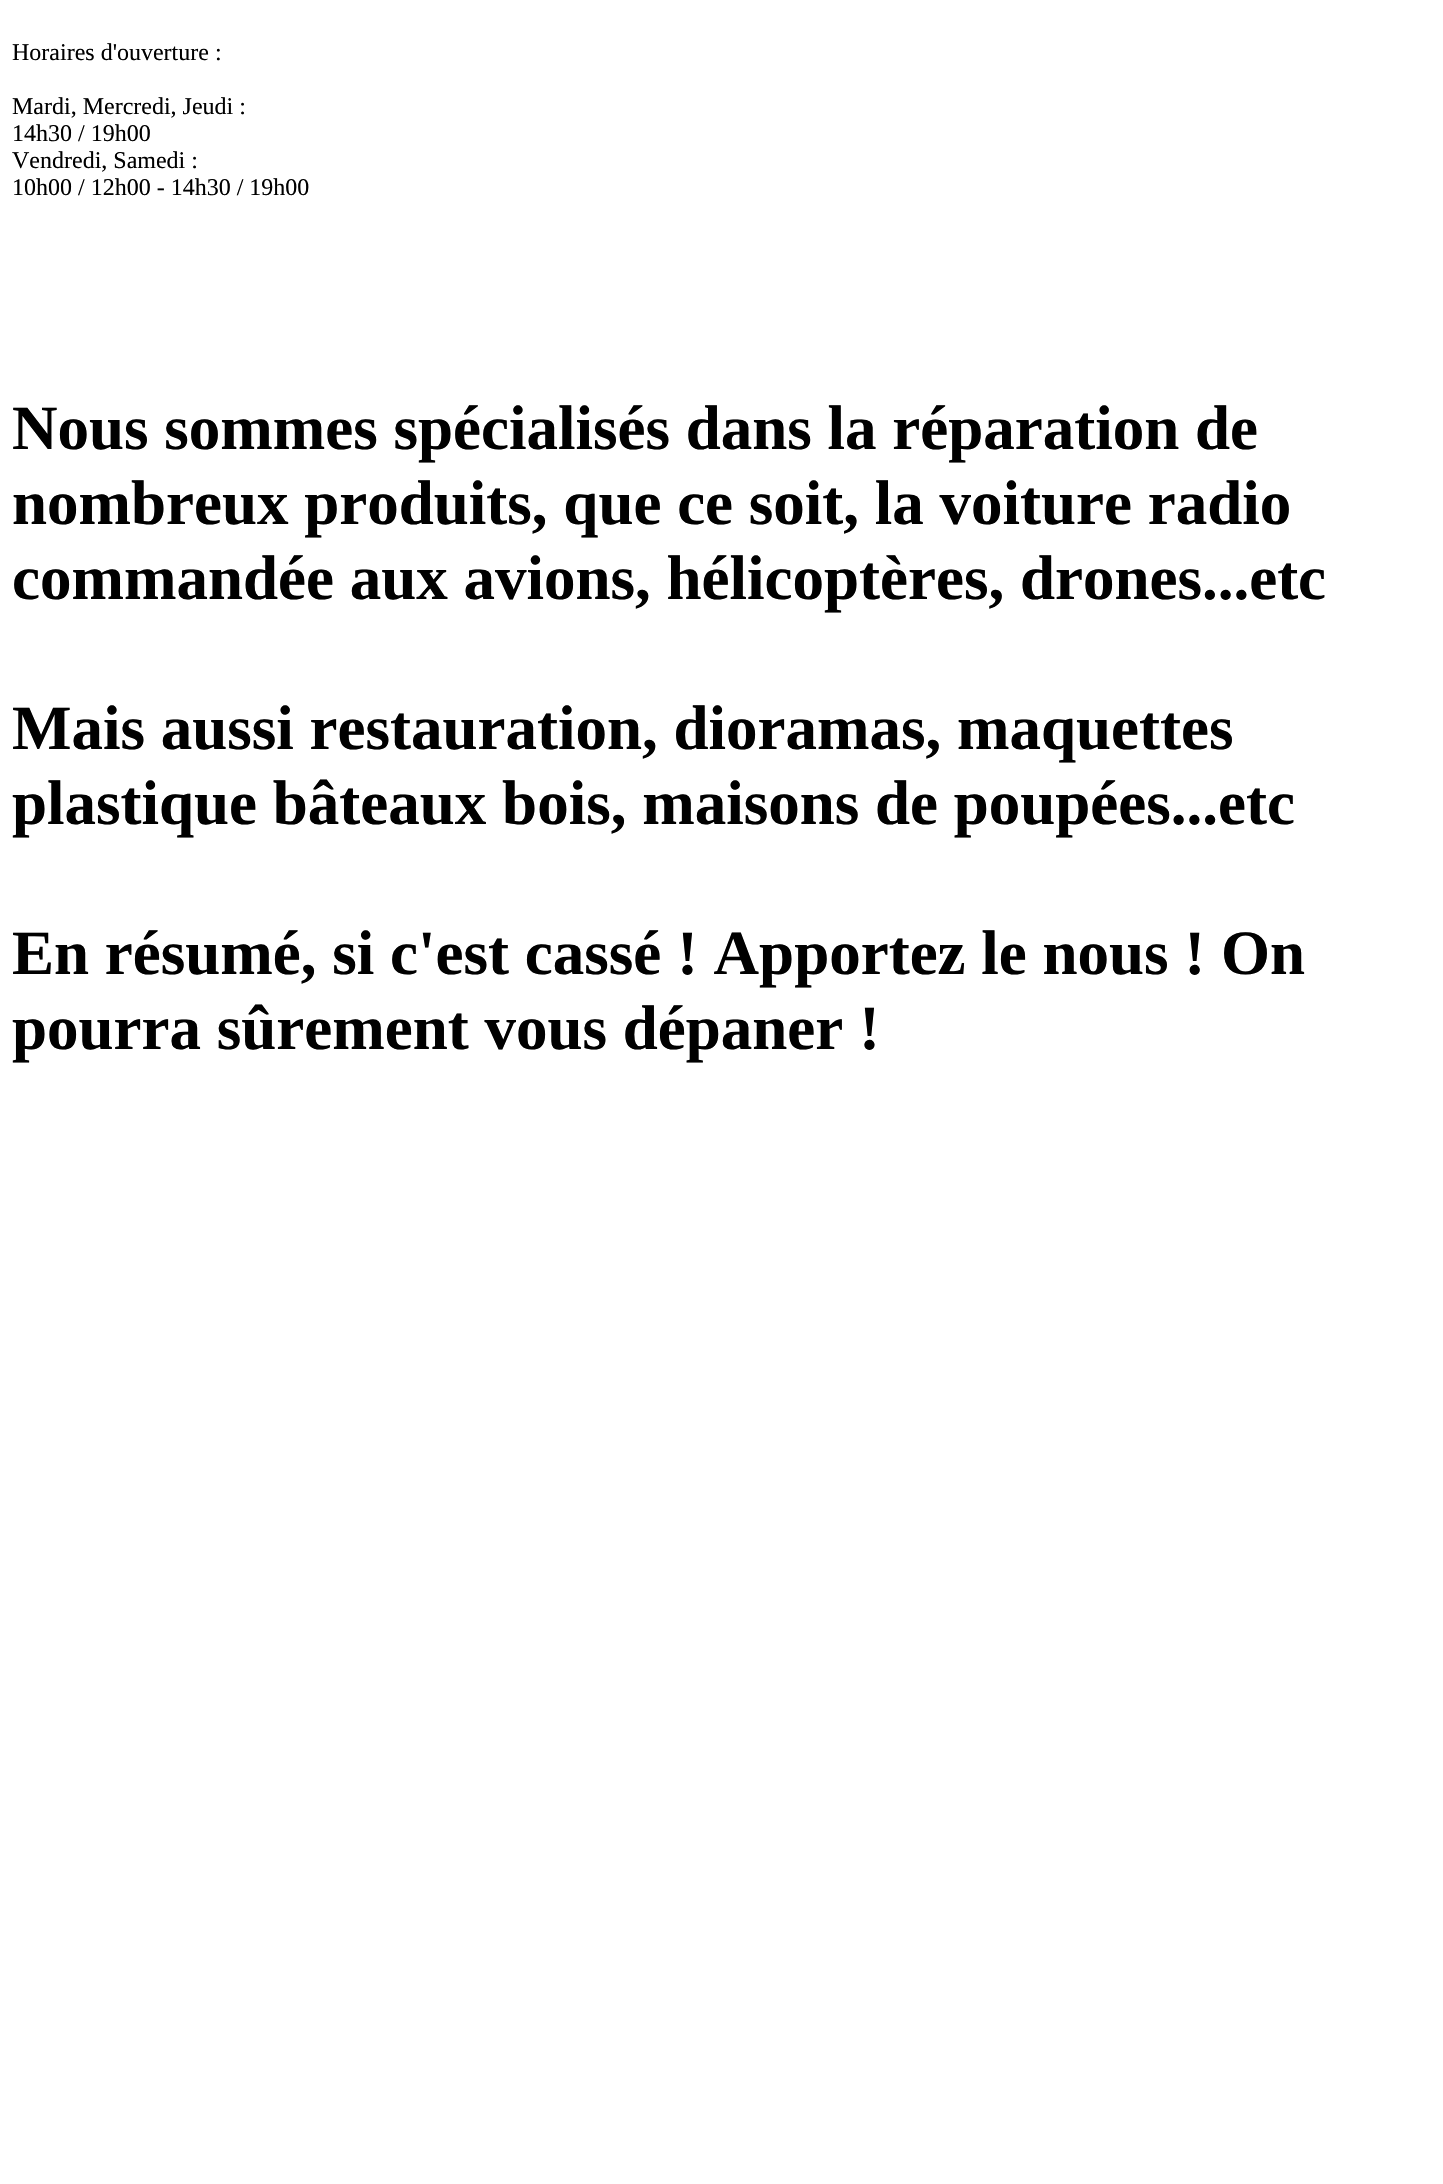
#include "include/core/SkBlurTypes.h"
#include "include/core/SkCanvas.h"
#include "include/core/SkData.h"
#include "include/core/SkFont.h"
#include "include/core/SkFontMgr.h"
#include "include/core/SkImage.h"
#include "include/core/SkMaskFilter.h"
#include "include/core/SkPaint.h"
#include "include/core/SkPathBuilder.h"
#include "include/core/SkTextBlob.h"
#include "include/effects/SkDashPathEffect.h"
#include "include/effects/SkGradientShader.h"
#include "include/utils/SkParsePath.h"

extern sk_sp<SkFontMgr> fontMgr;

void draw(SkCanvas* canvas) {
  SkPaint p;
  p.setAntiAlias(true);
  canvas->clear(SK_ColorWHITE);
  SkFont font1(fontMgr->matchFamilyStyle("Liberation Serif", SkFontStyle::Normal()), 24);
  font1.setSubpixel(true);
  p.setColor(SK_ColorBLACK);
  canvas->drawString("Horaires d'ouverture :", 12, 60, font1, p);
  canvas->drawString("Mardi, Mercredi, Jeudi :", 12, 114, font1, p);
  canvas->drawString("14h30 / 19h00", 12, 141, font1, p);
  canvas->drawString("Vendredi, Samedi :", 12, 168, font1, p);
  canvas->drawString("10h00 / 12h00 - 14h30 / 19h00", 12, 195, font1, p);
  SkFont font2(fontMgr->matchFamilyStyle("Liberation Serif", SkFontStyle::Bold()), 63);
  font2.setSubpixel(true);
  canvas->drawString("Nous sommes spécialisés dans la réparation de", 12, 449, font2, p);
  canvas->drawString("nombreux produits, que ce soit, la voiture radio", 12, 524, font2, p);
  canvas->drawString("commandée aux avions, hélicoptères, drones...etc", 12, 599, font2, p);
  canvas->drawString("Mais aussi restauration, dioramas, maquettes", 12, 749, font2, p);
  canvas->drawString("plastique bâteaux bois, maisons de poupées...etc", 12, 824, font2, p);
  canvas->drawString("En résumé, si c'est cassé ! Apportez le nous ! On", 12, 974, font2, p);
  canvas->drawString("pourra sûrement vous dépaner !", 12, 1049, font2, p);
}
